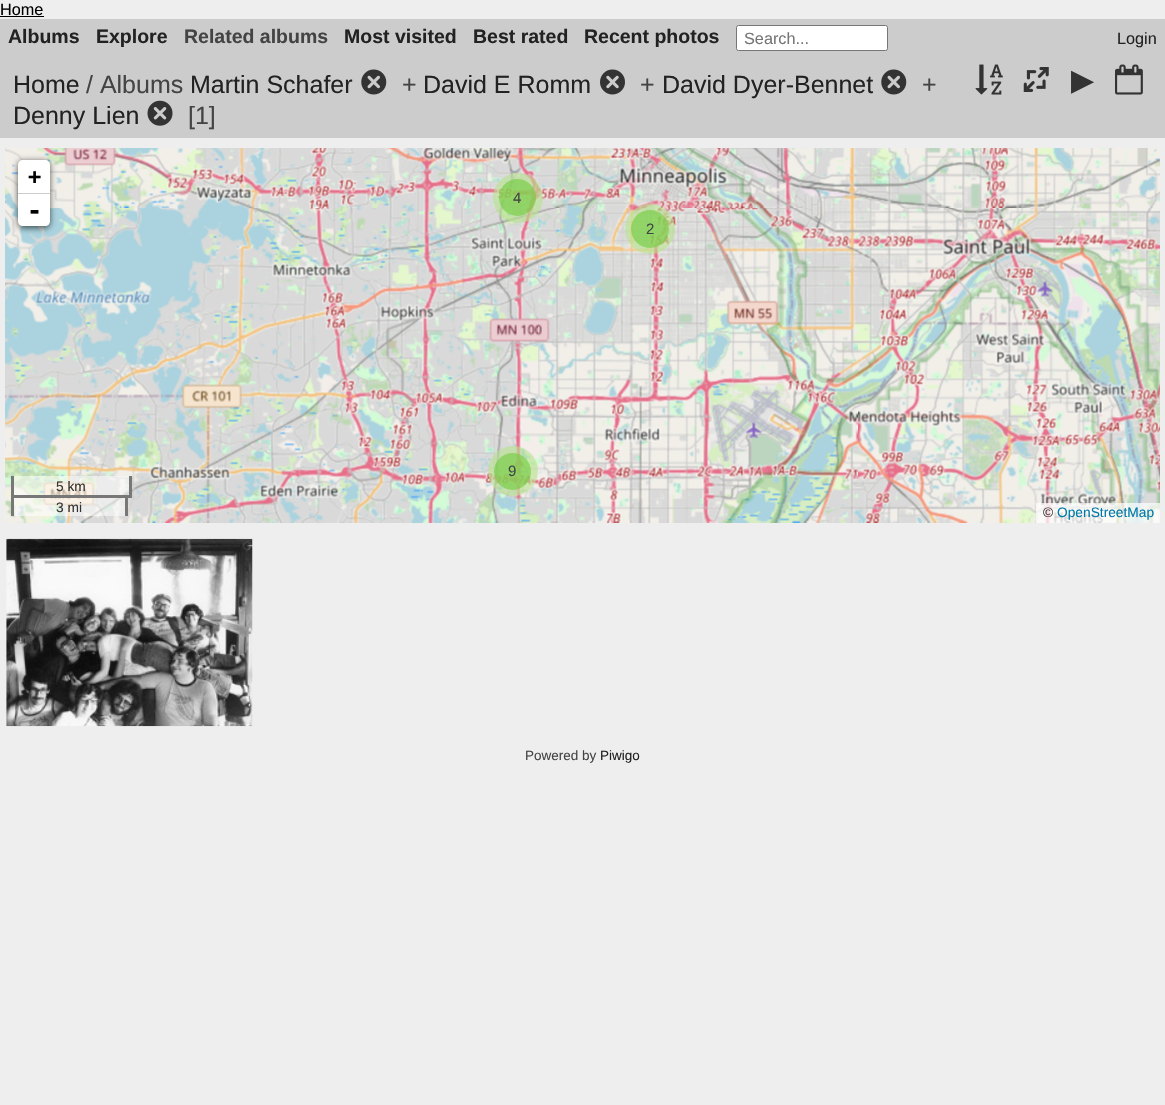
#include "include/core/SkBlurTypes.h"
#include "include/core/SkCanvas.h"
#include "include/core/SkData.h"
#include "include/core/SkFont.h"
#include "include/core/SkFontMgr.h"
#include "include/core/SkImage.h"
#include "include/core/SkMaskFilter.h"
#include "include/core/SkPaint.h"
#include "include/core/SkPathBuilder.h"
#include "include/core/SkTextBlob.h"
#include "include/effects/SkDashPathEffect.h"
#include "include/effects/SkGradientShader.h"
#include "include/utils/SkParsePath.h"

extern sk_sp<SkFontMgr> fontMgr;

void draw(SkCanvas* canvas) {
  SkPaint p;
  p.setAntiAlias(true);
  canvas->clear(SkColorSetRGB(238, 238, 238));
  p.setColor(SK_ColorBLACK);
  canvas->drawRect(SkRect::MakeLTRB(0, 16, 44, 17), p);
  p.setColor(SkColorSetRGB(204, 204, 204));
  canvas->drawRect(SkRect::MakeLTRB(0, 19, 1165, 138), p);
  p.setColor(SK_ColorWHITE);
  canvas->drawRoundRect(SkRect::MakeLTRB(736.5f, 25.5f, 887.5f, 50.5f), 2, 2, p);
  p.setStyle(SkPaint::kStroke_Style);
  p.setStrokeWidth(1);
  p.setColor(SkColorSetRGB(118, 118, 118));
  canvas->drawRoundRect(SkRect::MakeLTRB(736.5f, 25.5f, 887.5f, 50.5f), 2, 2, p);
  canvas->drawImageRect(SkImages::DeferredFromEncodedData(SkData::MakeFromFileName("images/1.png")), SkRect::MakeLTRB(361, 69, 387, 95), SkSamplingOptions());
  canvas->drawImageRect(SkImages::DeferredFromEncodedData(SkData::MakeFromFileName("images/2.png")), SkRect::MakeLTRB(600, 69, 625, 95), SkSamplingOptions());
  canvas->drawImageRect(SkImages::DeferredFromEncodedData(SkData::MakeFromFileName("images/1.png")), SkRect::MakeLTRB(881, 69, 907, 95), SkSamplingOptions());
  canvas->drawImageRect(SkImages::DeferredFromEncodedData(SkData::MakeFromFileName("images/3.png")), SkRect::MakeLTRB(147, 100, 173, 126), SkSamplingOptions());
  canvas->drawImageRect(SkImages::DeferredFromEncodedData(SkData::MakeFromFileName("images/4.png")), SkRect::MakeLTRB(975, 64, 1003, 95), SkSamplingOptions());
  canvas->drawImageRect(SkImages::DeferredFromEncodedData(SkData::MakeFromFileName("images/5.png")), SkRect::MakeLTRB(1023, 67, 1049, 92), SkSamplingOptions());
  canvas->drawImageRect(SkImages::DeferredFromEncodedData(SkData::MakeFromFileName("images/6.png")), SkRect::MakeLTRB(1115, 64, 1143, 95), SkSamplingOptions());
  canvas->drawImageRect(SkImages::DeferredFromEncodedData(SkData::MakeFromFileName("images/7.png")), SkRect::MakeLTRB(5, 148, 218, 208), SkSamplingOptions());
  canvas->drawImageRect(SkImages::DeferredFromEncodedData(SkData::MakeFromFileName("images/11.png")), SkRect::MakeLTRB(5, 208, 218, 523), SkSamplingOptions());
  p.setStyle(SkPaint::kFill_Style);
  p.setColor(SkColorSetARGB(166, 0, 0, 0));
  p.setMaskFilter(SkMaskFilter::MakeBlur(kNormal_SkBlurStyle, 3));
  canvas->drawRoundRect(SkRect::MakeLTRB(18, 161, 50, 228), 5, 5, p);
  p.setMaskFilter(nullptr);
  p.setColor(SK_ColorWHITE);
  canvas->drawPath(SkPathBuilder().moveTo(23, 160).lineTo(45, 160).cubicTo(48, 160, 50, 162, 50, 165).lineTo(50, 194).lineTo(18, 194).lineTo(18, 165).cubicTo(18, 162, 20, 160, 23, 160).close().detach(), p);
  p.setColor(SkColorSetRGB(204, 204, 204));
  canvas->drawRect(SkRect::MakeLTRB(18, 193, 50, 194), p);
  p.setColor(SK_ColorWHITE);
  canvas->drawPath(SkPathBuilder().moveTo(18, 194).lineTo(50, 194).lineTo(50, 221).cubicTo(50, 224, 48, 226, 45, 226).lineTo(23, 226).cubicTo(20, 226, 18, 224, 18, 221).close().detach(), p);
  p.setColor(SkColorSetARGB(128, 255, 255, 255));
  canvas->drawRect(SkRect::MakeLTRB(14, 476, 129, 495), p);
  p.setColor(SkColorSetRGB(119, 119, 119));
  canvas->drawRect(SkRect::MakeLTRB(129, 476, 132, 498), p);
  canvas->drawRect(SkRect::MakeLTRB(128, 495, 131, 498), p);
  canvas->drawRect(SkRect::MakeLTRB(11, 476, 14, 498), p);
  p.setColor(SkColorSetARGB(128, 255, 255, 255));
  canvas->drawRect(SkRect::MakeLTRB(14, 498, 125, 516), p);
  p.setColor(SkColorSetRGB(119, 119, 119));
  canvas->drawRect(SkRect::MakeLTRB(11, 495, 128, 498), p);
  canvas->drawRect(SkRect::MakeLTRB(125, 495, 128, 516), p);
  canvas->drawRect(SkRect::MakeLTRB(11, 495, 14, 516), p);
  canvas->drawImageRect(SkImages::DeferredFromEncodedData(SkData::MakeFromFileName("images/14.png")), SkRect::MakeLTRB(858, 208, 1160, 523), SkSamplingOptions());
  p.setColor(SkColorSetARGB(179, 255, 255, 255));
  canvas->drawRect(SkRect::MakeLTRB(1036, 503, 1160, 523), p);
  canvas->drawImageRect(SkImages::DeferredFromEncodedData(SkData::MakeFromFileName("images/8.png")), SkRect::MakeLTRB(218, 148, 538, 208), SkSamplingOptions());
  canvas->drawImageRect(SkImages::DeferredFromEncodedData(SkData::MakeFromFileName("images/9.png")), SkRect::MakeLTRB(538, 148, 858, 208), SkSamplingOptions());
  canvas->drawImageRect(SkImages::DeferredFromEncodedData(SkData::MakeFromFileName("images/10.png")), SkRect::MakeLTRB(858, 148, 1160, 208), SkSamplingOptions());
  canvas->drawImageRect(SkImages::DeferredFromEncodedData(SkData::MakeFromFileName("images/12.png")), SkRect::MakeLTRB(218, 208, 538, 523), SkSamplingOptions());
  canvas->drawImageRect(SkImages::DeferredFromEncodedData(SkData::MakeFromFileName("images/13.png")), SkRect::MakeLTRB(538, 208, 858, 523), SkSamplingOptions());
  p.setColor(SkColorSetARGB(153, 181, 226, 140));
  canvas->drawCircle(518, 198, 25, p);
  p.setColor(SkColorSetARGB(153, 110, 204, 57));
  canvas->drawCircle(517.5f, 197.5f, 18.5f, p);
  p.setColor(SkColorSetARGB(153, 181, 226, 140));
  canvas->drawCircle(650, 229, 25, p);
  p.setColor(SkColorSetARGB(153, 110, 204, 57));
  canvas->drawCircle(650, 229, 19, p);
  p.setColor(SkColorSetARGB(153, 181, 226, 140));
  canvas->drawCircle(513, 471, 25, p);
  p.setColor(SkColorSetARGB(153, 110, 204, 57));
  canvas->drawCircle(512.5f, 471.5f, 18.5f, p);
  canvas->drawImageRect(SkImages::DeferredFromEncodedData(SkData::MakeFromFileName("images/15.png")), SkRect::MakeLTRB(6, 538, 253, 727), SkSamplingOptions());
  SkFont font1(fontMgr->matchFamilyStyle("Liberation Sans", SkFontStyle::Normal()), 16.25f);
  font1.setSubpixel(true);
  p.setColor(SK_ColorBLACK);
  canvas->drawString("Home", 0, 15, font1, p);
  SkFont font2(fontMgr->matchFamilyStyle("Liberation Sans", SkFontStyle::Bold()), 19.5f);
  font2.setSubpixel(true);
  p.setColor(SkColorSetRGB(34, 34, 34));
  canvas->drawString("Albums", 8, 43, font2, p);
  canvas->drawString("Explore", 96, 43, font2, p);
  p.setColor(SkColorSetRGB(68, 68, 68));
  canvas->drawString("Related albums", 184, 43, font2, p);
  p.setColor(SkColorSetRGB(34, 34, 34));
  canvas->drawString("Most visited", 344, 43, font2, p);
  canvas->drawString("Best rated", 473, 43, font2, p);
  canvas->drawString("Recent photos", 584, 43, font2, p);
  p.setColor(SkColorSetRGB(117, 117, 117));
  canvas->drawString("Search...", 744, 44, font1, p);
  p.setColor(SkColorSetRGB(34, 34, 34));
  canvas->drawString("Login", 1117, 44, font1, p);
  SkFont font3(fontMgr->matchFamilyStyle("Liberation Sans", SkFontStyle::Normal()), 25);
  font3.setSubpixel(true);
  canvas->drawString("Home", 13, 93, font3, p);
  p.setColor(SkColorSetRGB(68, 68, 68));
  canvas->drawString("/ Albums", 86, 93, font3, p);
  p.setColor(SkColorSetRGB(34, 34, 34));
  canvas->drawString("Martin Schafer", 190, 93, font3, p);
  p.setColor(SkColorSetRGB(68, 68, 68));
  canvas->drawString("+", 402, 93, font3, p);
  p.setColor(SkColorSetRGB(34, 34, 34));
  canvas->drawString("David E Romm", 423, 93, font3, p);
  p.setColor(SkColorSetRGB(68, 68, 68));
  canvas->drawString("+", 640, 93, font3, p);
  p.setColor(SkColorSetRGB(34, 34, 34));
  canvas->drawString("David Dyer-Bennet", 662, 93, font3, p);
  p.setColor(SkColorSetRGB(68, 68, 68));
  canvas->drawString("+", 922, 93, font3, p);
  p.setColor(SkColorSetRGB(34, 34, 34));
  canvas->drawString("Denny Lien", 13, 124, font3, p);
  p.setColor(SkColorSetRGB(68, 68, 68));
  canvas->drawString("[1]", 188, 124, font3, p);
  SkFont font4(fontMgr->matchFamilyStyle("DejaVu Sans", SkFontStyle::Normal()), 30);
  font4.setSubpixel(true);
  p.setColor(SkColorSetRGB(51, 51, 51));
  canvas->drawString("▶", 1071, 90, font4, p);
  SkFont font5(fontMgr->matchFamilyStyle("DejaVu Sans Mono", SkFontStyle::Bold()), 22);
  font5.setSubpixel(true);
  p.setColor(SK_ColorBLACK);
  canvas->drawString("+", 28, 184, font5, p);
  SkFont font6(fontMgr->matchFamilyStyle("DejaVu Sans Mono", SkFontStyle::Bold()), 25);
  font6.setSubpixel(true);
  canvas->drawString("-", 27, 219, font6, p);
  SkFont font7(fontMgr->matchFamilyStyle("Liberation Sans", SkFontStyle::Normal()), 13.75f);
  font7.setSubpixel(true);
  p.setColor(SkColorSetRGB(51, 51, 51));
  canvas->drawString("5 km", 56, 491, font7, p);
  canvas->drawString("3 mi", 56, 512, font7, p);
  canvas->drawString("©", 1043, 517, font7, p);
  p.setColor(SkColorSetRGB(0, 120, 168));
  canvas->drawString("OpenStreetMap", 1057, 517, font7, p);
  SkFont font8(fontMgr->matchFamilyStyle("Liberation Sans", SkFontStyle::Normal()), 15);
  font8.setSubpixel(true);
  p.setColor(SkColorSetRGB(68, 68, 68));
  canvas->drawString("4", 513, 203, font8, p);
  canvas->drawString("2", 646, 234, font8, p);
  canvas->drawString("9", 508, 476, font8, p);
  SkFont font9(fontMgr->matchFamilyStyle("Liberation Sans", SkFontStyle::Normal()), 13.5f);
  font9.setSubpixel(true);
  canvas->drawString("Powered by", 525, 760, font9, p);
  p.setColor(SkColorSetRGB(34, 34, 34));
  canvas->drawString("Piwigo", 600, 760, font9, p);
}
